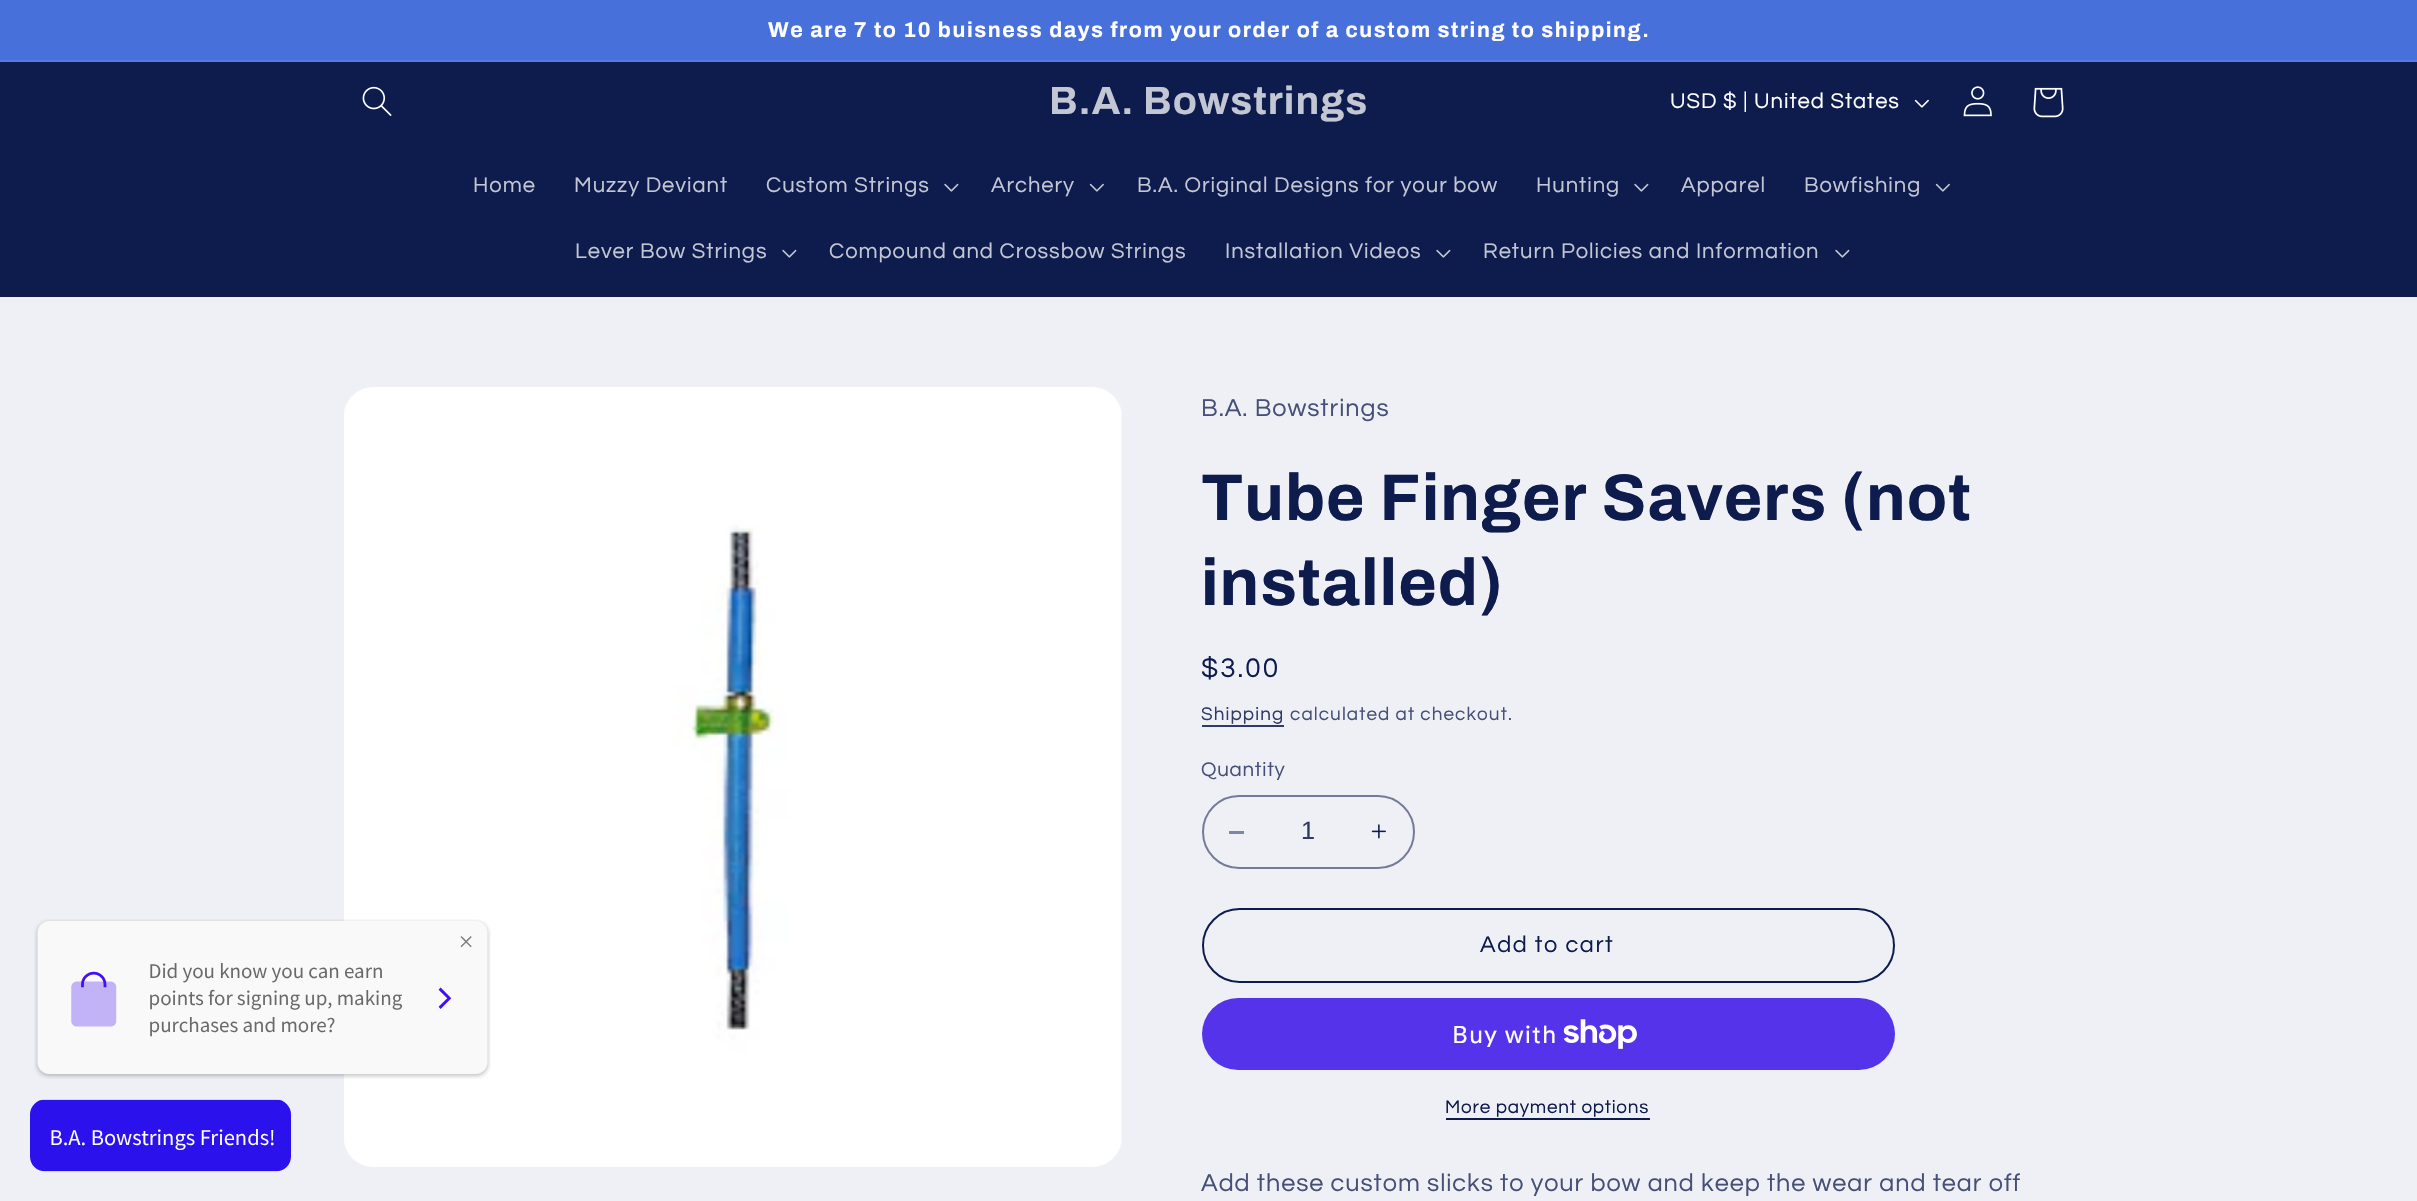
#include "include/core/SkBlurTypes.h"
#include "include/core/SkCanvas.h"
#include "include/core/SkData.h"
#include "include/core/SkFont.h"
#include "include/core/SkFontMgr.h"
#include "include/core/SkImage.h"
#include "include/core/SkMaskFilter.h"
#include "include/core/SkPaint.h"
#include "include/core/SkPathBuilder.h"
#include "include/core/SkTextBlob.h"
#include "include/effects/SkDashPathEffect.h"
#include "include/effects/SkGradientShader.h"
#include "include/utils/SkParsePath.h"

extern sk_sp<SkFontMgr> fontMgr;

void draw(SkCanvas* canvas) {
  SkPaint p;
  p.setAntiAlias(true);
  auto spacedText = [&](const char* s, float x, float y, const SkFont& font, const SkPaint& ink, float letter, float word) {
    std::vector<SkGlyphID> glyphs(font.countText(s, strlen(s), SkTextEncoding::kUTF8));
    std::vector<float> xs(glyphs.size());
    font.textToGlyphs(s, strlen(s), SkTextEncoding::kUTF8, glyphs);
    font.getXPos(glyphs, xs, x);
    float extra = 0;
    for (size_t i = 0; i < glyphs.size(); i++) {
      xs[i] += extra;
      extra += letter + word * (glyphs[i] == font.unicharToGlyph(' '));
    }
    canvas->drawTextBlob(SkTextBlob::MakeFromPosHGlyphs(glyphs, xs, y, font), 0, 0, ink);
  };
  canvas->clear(SkColorSetRGB(239, 240, 245));
  p.setColor(SkColorSetRGB(71, 112, 219));
  canvas->drawRect(SkRect::MakeLTRB(0, 0, 2417, 60), p);
  p.setColor(SkColorSetRGB(86, 123, 222));
  canvas->drawRect(SkRect::MakeLTRB(0, 60, 2417, 62), p);
  p.setColor(SkColorSetRGB(14, 27, 77));
  canvas->drawRect(SkRect::MakeLTRB(0, 62, 2417, 297), p);
  canvas->drawImageRect(SkImages::DeferredFromEncodedData(SkData::MakeFromFileName("images/1.png")), SkRect::MakeLTRB(362, 86, 392, 116), SkSamplingOptions());
  canvas->drawImageRect(SkImages::DeferredFromEncodedData(SkData::MakeFromFileName("images/2.png")), SkRect::MakeLTRB(1914, 99, 1929, 108), SkSamplingOptions());
  canvas->drawImageRect(SkImages::DeferredFromEncodedData(SkData::MakeFromFileName("images/3.png")), SkRect::MakeLTRB(1963, 86, 1992, 117), SkSamplingOptions());
  canvas->drawImageRect(SkImages::DeferredFromEncodedData(SkData::MakeFromFileName("images/4.png")), SkRect::MakeLTRB(2033, 87, 2064, 118), SkSamplingOptions());
  canvas->drawImageRect(SkImages::DeferredFromEncodedData(SkData::MakeFromFileName("images/5.png")), SkRect::MakeLTRB(944, 183, 959, 192), SkSamplingOptions());
  canvas->drawImageRect(SkImages::DeferredFromEncodedData(SkData::MakeFromFileName("images/6.png")), SkRect::MakeLTRB(1089, 183, 1104, 192), SkSamplingOptions());
  canvas->drawImageRect(SkImages::DeferredFromEncodedData(SkData::MakeFromFileName("images/5.png")), SkRect::MakeLTRB(1634, 183, 1649, 192), SkSamplingOptions());
  canvas->drawImageRect(SkImages::DeferredFromEncodedData(SkData::MakeFromFileName("images/6.png")), SkRect::MakeLTRB(1935, 183, 1950, 192), SkSamplingOptions());
  canvas->drawImageRect(SkImages::DeferredFromEncodedData(SkData::MakeFromFileName("images/5.png")), SkRect::MakeLTRB(782, 249, 797, 258), SkSamplingOptions());
  canvas->drawImageRect(SkImages::DeferredFromEncodedData(SkData::MakeFromFileName("images/5.png")), SkRect::MakeLTRB(1436, 249, 1451, 258), SkSamplingOptions());
  canvas->drawImageRect(SkImages::DeferredFromEncodedData(SkData::MakeFromFileName("images/5.png")), SkRect::MakeLTRB(1835, 249, 1850, 258), SkSamplingOptions());
  canvas->drawImageRect(SkImages::DeferredFromEncodedData(SkData::MakeFromFileName("images/8.png")), SkRect::MakeLTRB(344, 387, 1122, 1167), SkSamplingOptions());
  canvas->drawImageRect(SkImages::DeferredFromEncodedData(SkData::MakeFromFileName("images/7.png")), SkRect::MakeLTRB(34, 919, 491, 1079), SkSamplingOptions());
  p.setColor(SkColorSetRGB(48, 59, 102));
  canvas->drawRect(SkRect::MakeLTRB(1202, 725, 1284, 727), p);
  p.setColor(SkColorSetRGB(127, 134, 161));
  canvas->drawRect(SkRect::MakeLTRB(1229, 831, 1244, 834), p);
  canvas->drawImageRect(SkImages::DeferredFromEncodedData(SkData::MakeFromFileName("images/9.png")), SkRect::MakeLTRB(1371, 824, 1386, 839), SkSamplingOptions());
  p.setStyle(SkPaint::kStroke_Style);
  p.setStrokeWidth(2);
  p.setColor(SkColorSetRGB(115, 123, 153));
  canvas->drawRoundRect(SkRect::MakeLTRB(1203, 796, 1414, 868), 36, 36, p);
  p.setColor(SkColorSetRGB(14, 27, 77));
  canvas->drawRoundRect(SkRect::MakeLTRB(1203, 909, 1894, 982), 36.5f, 36.5f, p);
  p.setStyle(SkPaint::kFill_Style);
  p.setColor(SkColorSetRGB(84, 51, 235));
  canvas->drawRoundRect(SkRect::MakeLTRB(1202, 998, 1895, 1070), 36, 36, p);
  canvas->drawImageRect(SkImages::DeferredFromEncodedData(SkData::MakeFromFileName("images/10.png")), SkRect::MakeLTRB(1563, 1019, 1637, 1049), SkSamplingOptions());
  p.setColor(SkColorSetRGB(14, 27, 77));
  canvas->drawRect(SkRect::MakeLTRB(1446, 1118, 1650, 1120), p);
  canvas->drawImageRect(SkImages::DeferredFromEncodedData(SkData::MakeFromFileName("images/11.png")), SkRect::MakeLTRB(30, 1099, 291, 1172), SkSamplingOptions());
  SkFont font1(fontMgr->matchFamilyStyle("Archivo", SkFontStyle::Bold()), 21.45f);
  font1.setSubpixel(true);
  p.setColor(SK_ColorWHITE);
  spacedText("We are 7 to 10 buisness days from your order of a custom string to shipping.", 768, 37, font1, p, 1.58f, 0);
  SkFont font2(fontMgr->matchFamilyStyle("Archivo", SkFontStyle::Bold()), 39.5f);
  font2.setSubpixel(true);
  p.setColor(SkColorSetRGB(195, 198, 211));
  spacedText("B.A. Bowstrings", 1049, 114, font2, p, 1, 0);
  SkFont font3(fontMgr->matchFamilyStyle("Questrial", SkFontStyle::Normal()), 22);
  font3.setSubpixel(true);
  p.setColor(SK_ColorWHITE);
  spacedText("USD $ | United States", 1670, 108, font3, p, 0.95f, 0);
  p.setColor(SkColorSetRGB(195, 198, 211));
  spacedText("Home", 473, 192, font3, p, 0.95f, 0);
  spacedText("Muzzy Deviant", 574, 192, font3, p, 0.95f, 0);
  spacedText("Custom Strings", 766, 192, font3, p, 0.95f, 0);
  spacedText("Archery", 991, 192, font3, p, 0.95f, 0);
  spacedText("B.A. Original Designs for your bow", 1137, 192, font3, p, 0.95f, 0);
  spacedText("Hunting", 1536, 192, font3, p, 0.95f, 0);
  spacedText("Apparel", 1681, 192, font3, p, 0.95f, 0);
  spacedText("Bowfishing", 1804, 192, font3, p, 0.95f, 0);
  spacedText("Lever Bow Strings", 575, 258, font3, p, 0.95f, 0);
  spacedText("Compound and Crossbow Strings", 829, 258, font3, p, 0.95f, 0);
  spacedText("Installation Videos", 1225, 258, font3, p, 0.95f, 0);
  spacedText("Return Policies and Information", 1483, 258, font3, p, 0.95f, 0);
  SkFont font4(fontMgr->matchFamilyStyle("Questrial", SkFontStyle::Normal()), 25.2f);
  font4.setSubpixel(true);
  p.setColor(SkColorSetRGB(70, 80, 119));
  spacedText("B.A. Bowstrings", 1201, 416, font4, p, 0.95f, 0);
  SkFont font5(fontMgr->matchFamilyStyle("Archivo", SkFontStyle::Bold()), 66);
  font5.setSubpixel(true);
  p.setColor(SkColorSetRGB(14, 27, 77));
  spacedText("Tube Finger Savers (not", 1201, 520, font5, p, 1, 0);
  spacedText("installed)", 1201, 605, font5, p, 1, 0);
  SkFont font6(fontMgr->matchFamilyStyle("Questrial", SkFontStyle::Normal()), 28);
  font6.setSubpixel(true);
  spacedText("$3.00", 1201, 677, font6, p, 2, 0);
  SkFont font7(fontMgr->matchFamilyStyle("Questrial", SkFontStyle::Normal()), 18.9f);
  font7.setSubpixel(true);
  p.setColor(SkColorSetRGB(48, 59, 102));
  spacedText("Shipping", 1201, 720, font7, p, 1.1f, 0);
  p.setColor(SkColorSetRGB(70, 80, 119));
  spacedText("calculated at checkout.", 1290, 720, font7, p, 1.1f, 0);
  SkFont font8(fontMgr->matchFamilyStyle("Questrial", SkFontStyle::Normal()), 20.5f);
  font8.setSubpixel(true);
  spacedText("Quantity", 1201, 776, font8, p, 0.75f, 0);
  SkFont font9(fontMgr->matchFamilyStyle("Liberation Sans", SkFontStyle::Normal()), 25.2f);
  font9.setSubpixel(true);
  p.setColor(SkColorSetRGB(48, 59, 102));
  canvas->drawString("1", 1301, 839, font9, p);
  SkFont font10(fontMgr->matchFamilyStyle("Questrial", SkFontStyle::Normal()), 23.5f);
  font10.setSubpixel(true);
  p.setColor(SkColorSetRGB(14, 27, 77));
  spacedText("Add to cart", 1480, 952, font10, p, 1.58f, 0);
  SkFont font11(fontMgr->matchFamilyStyle("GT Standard", SkFontStyle::Normal()), 24);
  font11.setSubpixel(true);
  p.setColor(SK_ColorWHITE);
  spacedText("Buy with", 1452, 1043, font11, p, 0.95f, 0);
  p.setColor(SkColorSetRGB(14, 27, 77));
  spacedText("More payment options", 1445, 1113, font7, p, 0.75f, 0);
  p.setColor(SkColorSetRGB(70, 80, 119));
  spacedText("Add these custom slicks to your bow and keep the wear and tear off", 1201, 1191, font4, p, 0.95f, 0);
}
